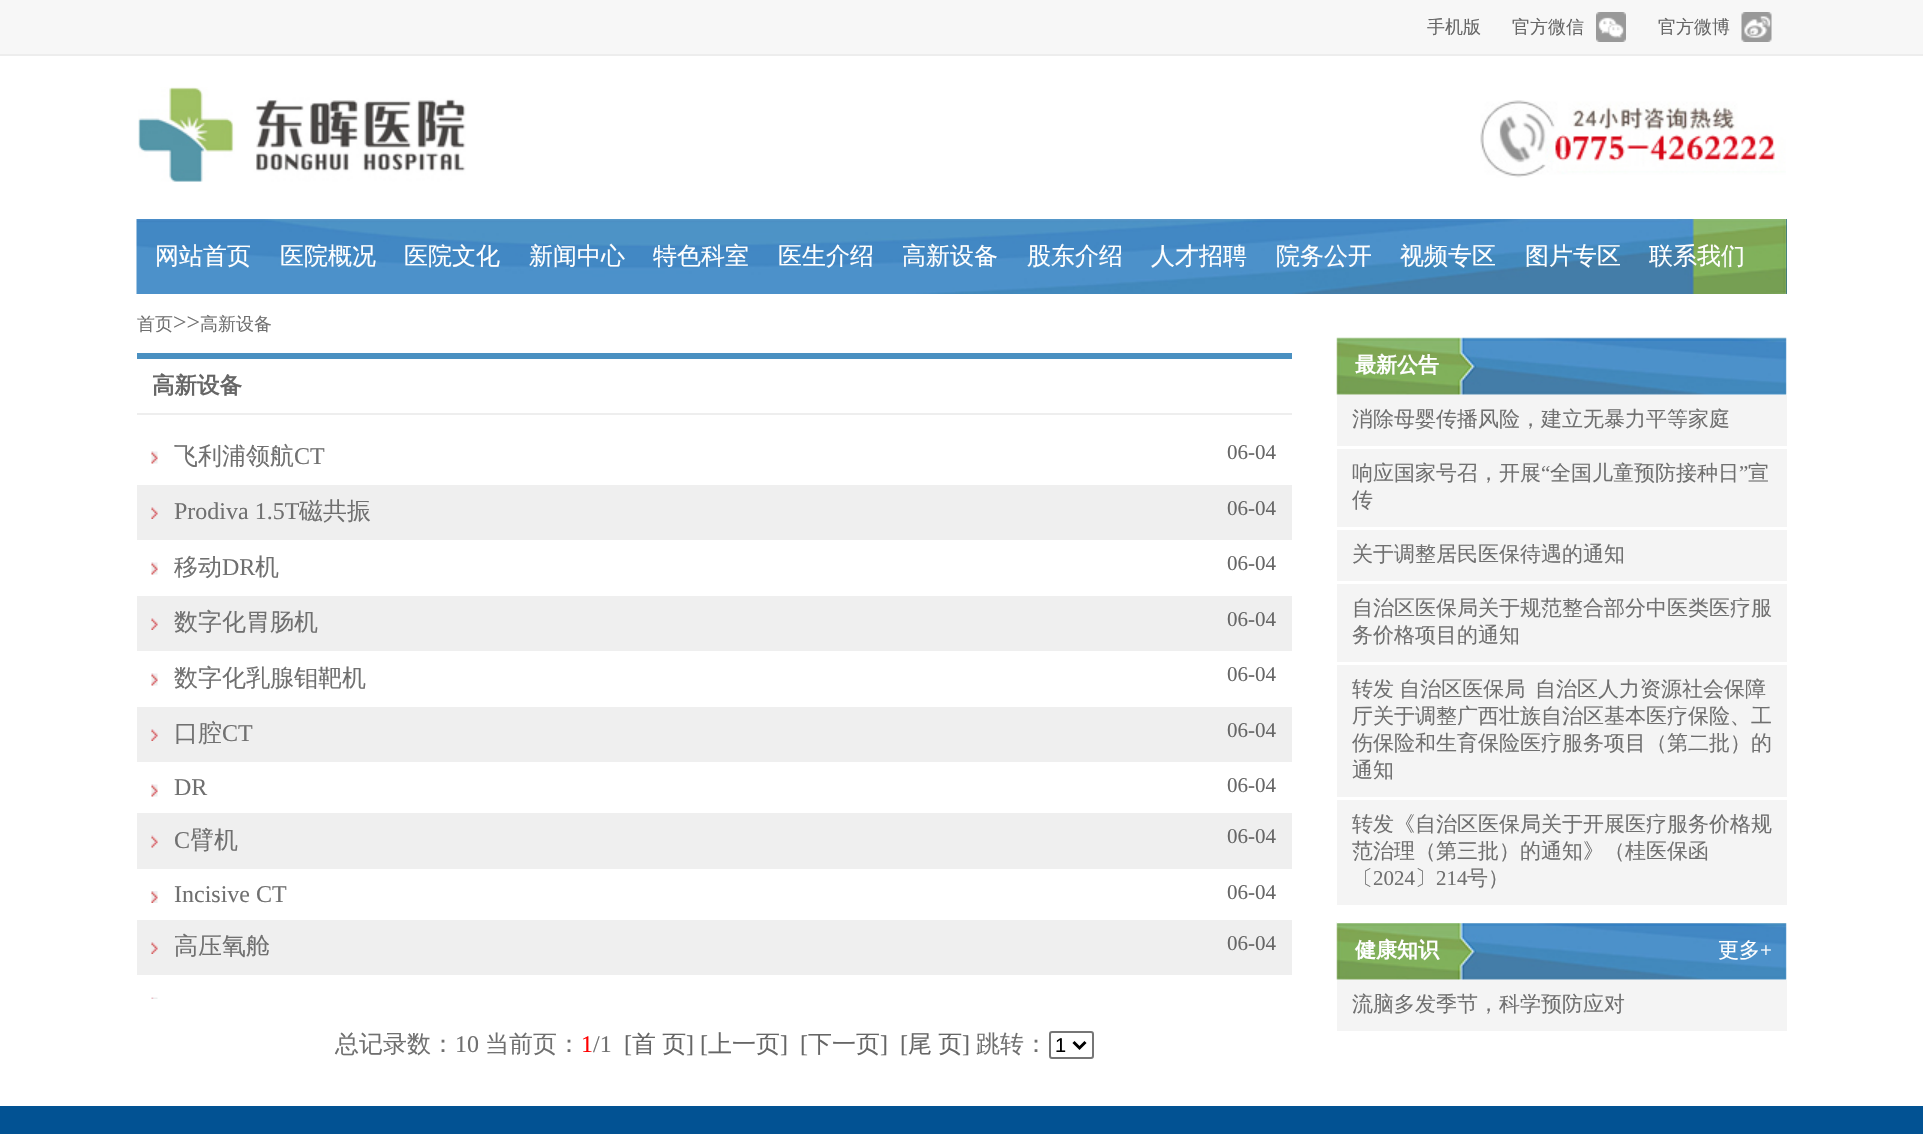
#include "include/core/SkBlurTypes.h"
#include "include/core/SkCanvas.h"
#include "include/core/SkData.h"
#include "include/core/SkFont.h"
#include "include/core/SkFontMgr.h"
#include "include/core/SkImage.h"
#include "include/core/SkMaskFilter.h"
#include "include/core/SkPaint.h"
#include "include/core/SkPathBuilder.h"
#include "include/core/SkTextBlob.h"
#include "include/effects/SkDashPathEffect.h"
#include "include/effects/SkGradientShader.h"
#include "include/utils/SkParsePath.h"

extern sk_sp<SkFontMgr> fontMgr;

void draw(SkCanvas* canvas) {
  SkPaint p;
  p.setAntiAlias(true);
  auto spacedText = [&](const char* s, float x, float y, const SkFont& font, const SkPaint& ink, float letter, float word) {
    std::vector<SkGlyphID> glyphs(font.countText(s, strlen(s), SkTextEncoding::kUTF8));
    std::vector<float> xs(glyphs.size());
    font.textToGlyphs(s, strlen(s), SkTextEncoding::kUTF8, glyphs);
    font.getXPos(glyphs, xs, x);
    float extra = 0;
    for (size_t i = 0; i < glyphs.size(); i++) {
      xs[i] += extra;
      extra += letter + word * (glyphs[i] == font.unicharToGlyph(' '));
    }
    canvas->drawTextBlob(SkTextBlob::MakeFromPosHGlyphs(glyphs, xs, y, font), 0, 0, ink);
  };
  canvas->clear(SK_ColorWHITE);
  p.setColor(SkColorSetRGB(247, 247, 247));
  canvas->drawRect(SkRect::MakeLTRB(0, 0, 1923, 54), p);
  p.setColor(SkColorSetRGB(237, 237, 237));
  canvas->drawRect(SkRect::MakeLTRB(0, 54, 1923, 56), p);
  canvas->drawImageRect(SkImages::DeferredFromEncodedData(SkData::MakeFromFileName("images/1.png")), SkRect::MakeLTRB(1596, 12, 1626, 42), SkSamplingOptions());
  canvas->drawImageRect(SkImages::DeferredFromEncodedData(SkData::MakeFromFileName("images/2.png")), SkRect::MakeLTRB(1741, 12, 1772, 42), SkSamplingOptions());
  canvas->drawImageRect(SkImages::DeferredFromEncodedData(SkData::MakeFromFileName("images/3.png")), SkRect::MakeLTRB(138, 87, 466, 182), SkSamplingOptions());
  canvas->drawImageRect(SkImages::DeferredFromEncodedData(SkData::MakeFromFileName("images/4.png")), SkRect::MakeLTRB(1480, 100, 1786, 178), SkSamplingOptions());
  p.setColor(SkColorSetRGB(2, 82, 147));
  canvas->drawRect(SkRect::MakeLTRB(1786, 219, 1787, 294), p);
  canvas->drawImageRect(SkImages::DeferredFromEncodedData(SkData::MakeFromFileName("images/5.png")), SkRect::MakeLTRB(136, 219, 1787, 294), SkSamplingOptions());
  p.setColor(SkColorSetRGB(74, 144, 193));
  canvas->drawRect(SkRect::MakeLTRB(137, 353, 1292, 359), p);
  p.setColor(SkColorSetRGB(238, 238, 238));
  canvas->drawRect(SkRect::MakeLTRB(137, 413, 1292, 415), p);
  canvas->drawImageRect(SkImages::DeferredFromEncodedData(SkData::MakeFromFileName("images/6.png")), SkRect::MakeLTRB(151, 451, 158, 464), SkSamplingOptions());
  p.setColor(SkColorSetRGB(239, 239, 239));
  canvas->drawRect(SkRect::MakeLTRB(137, 485, 1292, 540), p);
  canvas->drawImageRect(SkImages::DeferredFromEncodedData(SkData::MakeFromFileName("images/7.png")), SkRect::MakeLTRB(151, 507, 158, 519), SkSamplingOptions());
  canvas->drawImageRect(SkImages::DeferredFromEncodedData(SkData::MakeFromFileName("images/6.png")), SkRect::MakeLTRB(151, 562, 158, 575), SkSamplingOptions());
  canvas->drawRect(SkRect::MakeLTRB(137, 596, 1292, 651), p);
  canvas->drawImageRect(SkImages::DeferredFromEncodedData(SkData::MakeFromFileName("images/7.png")), SkRect::MakeLTRB(151, 618, 158, 630), SkSamplingOptions());
  canvas->drawImageRect(SkImages::DeferredFromEncodedData(SkData::MakeFromFileName("images/6.png")), SkRect::MakeLTRB(151, 673, 158, 686), SkSamplingOptions());
  canvas->drawRect(SkRect::MakeLTRB(137, 707, 1292, 762), p);
  canvas->drawImageRect(SkImages::DeferredFromEncodedData(SkData::MakeFromFileName("images/7.png")), SkRect::MakeLTRB(151, 729, 158, 741), SkSamplingOptions());
  canvas->drawImageRect(SkImages::DeferredFromEncodedData(SkData::MakeFromFileName("images/6.png")), SkRect::MakeLTRB(151, 784, 158, 797), SkSamplingOptions());
  canvas->drawRect(SkRect::MakeLTRB(137, 813, 1292, 869), p);
  canvas->drawImageRect(SkImages::DeferredFromEncodedData(SkData::MakeFromFileName("images/8.png")), SkRect::MakeLTRB(151, 835, 158, 848), SkSamplingOptions());
  canvas->drawImageRect(SkImages::DeferredFromEncodedData(SkData::MakeFromFileName("images/9.png")), SkRect::MakeLTRB(151, 891, 158, 903), SkSamplingOptions());
  canvas->drawRect(SkRect::MakeLTRB(137, 920, 1292, 975), p);
  canvas->drawImageRect(SkImages::DeferredFromEncodedData(SkData::MakeFromFileName("images/7.png")), SkRect::MakeLTRB(151, 942, 158, 954), SkSamplingOptions());
  canvas->drawImageRect(SkImages::DeferredFromEncodedData(SkData::MakeFromFileName("images/10.png")), SkRect::MakeLTRB(151, 997, 158, 999), SkSamplingOptions());
  p.setStyle(SkPaint::kStroke_Style);
  p.setStrokeWidth(2);
  p.setColor(SkColorSetRGB(118, 118, 118));
  canvas->drawRoundRect(SkRect::MakeLTRB(1050, 1032, 1093, 1058), 2, 2, p);
  p.setStrokeWidth(3);
  p.setColor(SK_ColorBLACK);
  canvas->drawPath(SkPathBuilder().moveTo(1073.5f, 1042).lineTo(1079.5f, 1048).lineTo(1085.5f, 1042).detach(), p);
  canvas->drawImageRect(SkImages::DeferredFromEncodedData(SkData::MakeFromFileName("images/11.png")), SkRect::MakeLTRB(1336, 337, 1787, 395), SkSamplingOptions());
  p.setStyle(SkPaint::kFill_Style);
  p.setColor(SkColorSetRGB(244, 244, 244));
  canvas->drawRect(SkRect::MakeLTRB(1337, 395, 1787, 905), p);
  p.setColor(SK_ColorWHITE);
  canvas->drawRect(SkRect::MakeLTRB(1337, 446, 1787, 449), p);
  canvas->drawRect(SkRect::MakeLTRB(1337, 527, 1787, 530), p);
  canvas->drawRect(SkRect::MakeLTRB(1337, 581, 1787, 584), p);
  canvas->drawRect(SkRect::MakeLTRB(1337, 662, 1787, 665), p);
  canvas->drawRect(SkRect::MakeLTRB(1337, 797, 1787, 800), p);
  canvas->drawImageRect(SkImages::DeferredFromEncodedData(SkData::MakeFromFileName("images/12.png")), SkRect::MakeLTRB(1336, 922, 1787, 980), SkSamplingOptions());
  canvas->drawRect(SkRect::MakeLTRB(1337, 922, 1787, 923), p);
  p.setColor(SkColorSetRGB(244, 244, 244));
  canvas->drawRect(SkRect::MakeLTRB(1337, 980, 1787, 1031), p);
  p.setColor(SkColorSetRGB(2, 82, 147));
  canvas->drawRect(SkRect::MakeLTRB(0, 1106, 1923, 1134), p);
  SkFont font1(fontMgr->matchFamilyStyle("WenQuanYi Zen Hei", SkFontStyle(500, SkFontStyle::kNormal_Width, SkFontStyle::kUpright_Slant)), 18);
  font1.setSubpixel(true);
  p.setColor(SkColorSetRGB(102, 102, 102));
  canvas->drawString("手机版", 1427, 33, font1, p);
  canvas->drawString("官方微信", 1512, 33, font1, p);
  canvas->drawString("官方微博", 1658, 33, font1, p);
  SkFont font2(fontMgr->matchFamilyStyle("WenQuanYi Zen Hei", SkFontStyle(500, SkFontStyle::kNormal_Width, SkFontStyle::kUpright_Slant)), 24);
  font2.setSubpixel(true);
  p.setColor(SK_ColorWHITE);
  canvas->drawString("网站首页", 155, 264, font2, p);
  canvas->drawString("医院概况", 280, 264, font2, p);
  canvas->drawString("医院文化", 404, 264, font2, p);
  canvas->drawString("新闻中心", 529, 264, font2, p);
  canvas->drawString("特色科室", 653, 264, font2, p);
  canvas->drawString("医生介绍", 778, 264, font2, p);
  canvas->drawString("高新设备", 902, 264, font2, p);
  canvas->drawString("股东介绍", 1027, 264, font2, p);
  canvas->drawString("人才招聘", 1151, 264, font2, p);
  canvas->drawString("院务公开", 1276, 264, font2, p);
  canvas->drawString("视频专区", 1400, 264, font2, p);
  canvas->drawString("图片专区", 1525, 264, font2, p);
  canvas->drawString("联系我们", 1649, 264, font2, p);
  p.setColor(SkColorSetRGB(112, 112, 112));
  canvas->drawString("首页", 137, 330, font1, p);
  SkFont font3(fontMgr->matchFamilyStyle("Liberation Serif", SkFontStyle::Normal()), 24);
  font3.setSubpixel(true);
  canvas->drawString(">>", 173, 330, font3, p);
  canvas->drawString("高新设备", 200, 330, font1, p);
  SkFont font4(fontMgr->matchFamilyStyle("WenQuanYi Zen Hei", SkFontStyle::Bold()), 22.5f);
  font4.setSubpixel(true);
  p.setColor(SkColorSetRGB(102, 102, 102));
  canvas->drawString("高新设备", 152, 393, font4, p);
  p.setColor(SkColorSetRGB(112, 112, 112));
  canvas->drawString("飞利浦领航", 174, 464, font2, p);
  canvas->drawString("CT", 294, 464, font3, p);
  SkFont font5(fontMgr->matchFamilyStyle("Liberation Serif", SkFontStyle::Normal()), 21);
  font5.setSubpixel(true);
  p.setColor(SkColorSetRGB(102, 102, 102));
  canvas->drawString("06-04", 1227, 459, font5, p);
  p.setColor(SkColorSetRGB(112, 112, 112));
  canvas->drawString("Prodiva 1.5T", 174, 519, font3, p);
  canvas->drawString("磁共振", 299, 519, font2, p);
  p.setColor(SkColorSetRGB(102, 102, 102));
  canvas->drawString("06-04", 1227, 515, font5, p);
  p.setColor(SkColorSetRGB(112, 112, 112));
  canvas->drawString("移动", 174, 575, font2, p);
  canvas->drawString("DR", 222, 575, font3, p);
  canvas->drawString("机", 255, 575, font2, p);
  p.setColor(SkColorSetRGB(102, 102, 102));
  canvas->drawString("06-04", 1227, 570, font5, p);
  p.setColor(SkColorSetRGB(112, 112, 112));
  canvas->drawString("数字化胃肠机", 174, 630, font2, p);
  p.setColor(SkColorSetRGB(102, 102, 102));
  canvas->drawString("06-04", 1227, 626, font5, p);
  p.setColor(SkColorSetRGB(112, 112, 112));
  canvas->drawString("数字化乳腺钼靶机", 174, 686, font2, p);
  p.setColor(SkColorSetRGB(102, 102, 102));
  canvas->drawString("06-04", 1227, 681, font5, p);
  p.setColor(SkColorSetRGB(112, 112, 112));
  canvas->drawString("口腔", 174, 741, font2, p);
  canvas->drawString("CT", 222, 741, font3, p);
  p.setColor(SkColorSetRGB(102, 102, 102));
  canvas->drawString("06-04", 1227, 737, font5, p);
  p.setColor(SkColorSetRGB(112, 112, 112));
  canvas->drawString("DR", 174, 795, font3, p);
  p.setColor(SkColorSetRGB(102, 102, 102));
  canvas->drawString("06-04", 1227, 792, font5, p);
  p.setColor(SkColorSetRGB(112, 112, 112));
  canvas->drawString("C", 174, 848, font3, p);
  canvas->drawString("臂机", 190, 848, font2, p);
  p.setColor(SkColorSetRGB(102, 102, 102));
  canvas->drawString("06-04", 1227, 843, font5, p);
  p.setColor(SkColorSetRGB(112, 112, 112));
  canvas->drawString("Incisive CT", 174, 902, font3, p);
  p.setColor(SkColorSetRGB(102, 102, 102));
  canvas->drawString("06-04", 1227, 899, font5, p);
  p.setColor(SkColorSetRGB(112, 112, 112));
  canvas->drawString("高压氧舱", 174, 954, font2, p);
  p.setColor(SkColorSetRGB(102, 102, 102));
  canvas->drawString("06-04", 1227, 950, font5, p);
  p.setColor(SkColorSetRGB(112, 112, 112));
  canvas->drawString("总记录数：", 335, 1052, font2, p);
  canvas->drawString("10", 455, 1052, font3, p);
  canvas->drawString("当前页：", 485, 1052, font2, p);
  p.setColor(SkColorSetRGB(255, 0, 0));
  canvas->drawString("1", 581, 1052, font3, p);
  p.setColor(SkColorSetRGB(112, 112, 112));
  canvas->drawString("/1", 593, 1052, font3, p);
  p.setColor(SkColorSetRGB(102, 102, 102));
  canvas->drawString("[", 624, 1052, font3, p);
  spacedText("首 页", 632, 1052, font2, p, 0, -1);
  canvas->drawString("] [", 686, 1052, font3, p);
  canvas->drawString("上一页", 708, 1052, font2, p);
  canvas->drawString("]", 780, 1052, font3, p);
  canvas->drawString("[", 800, 1052, font3, p);
  canvas->drawString("下一页", 808, 1052, font2, p);
  canvas->drawString("]", 880, 1052, font3, p);
  canvas->drawString("[", 900, 1052, font3, p);
  spacedText("尾 页", 908, 1052, font2, p, 0, -1);
  canvas->drawString("]", 962, 1052, font3, p);
  p.setColor(SkColorSetRGB(112, 112, 112));
  canvas->drawString("跳转：", 976, 1052, font2, p);
  SkFont font6(fontMgr->matchFamilyStyle("Liberation Sans", SkFontStyle::Normal()), 20);
  font6.setSubpixel(true);
  p.setColor(SK_ColorBLACK);
  canvas->drawString("1", 1055, 1052, font6, p);
  SkFont font7(fontMgr->matchFamilyStyle("WenQuanYi Zen Hei", SkFontStyle::Bold()), 21);
  font7.setSubpixel(true);
  p.setColor(SK_ColorWHITE);
  canvas->drawString("最新公告", 1355, 372, font7, p);
  SkFont font8(fontMgr->matchFamilyStyle("WenQuanYi Zen Hei", SkFontStyle(500, SkFontStyle::kNormal_Width, SkFontStyle::kUpright_Slant)), 21);
  font8.setSubpixel(true);
  p.setColor(SkColorSetRGB(112, 112, 112));
  canvas->drawString("消除母婴传播风险，建立无暴力平等家庭", 1352, 426, font8, p);
  canvas->drawString("响应国家号召，开展", 1352, 480, font8, p);
  canvas->drawString("“", 1541, 480, font5, p);
  canvas->drawString("全国儿童预防接种日", 1550, 480, font8, p);
  canvas->drawString("”", 1739, 480, font5, p);
  canvas->drawString("宣", 1748, 480, font8, p);
  canvas->drawString("传", 1352, 507, font8, p);
  canvas->drawString("关于调整居民医保待遇的通知", 1352, 561, font8, p);
  canvas->drawString("自治区医保局关于规范整合部分中医类医疗服", 1352, 615, font8, p);
  canvas->drawString("务价格项目的通知", 1352, 642, font8, p);
  spacedText("转发 自治区医保局", 1352, 696, font8, p, 0, -1);
  canvas->drawString("自治区人力资源社会保障", 1535, 696, font8, p);
  canvas->drawString("厅关于调整广西壮族自治区基本医疗保险、工", 1352, 723, font8, p);
  canvas->drawString("伤保险和生育保险医疗服务项目（第二批）的", 1352, 750, font8, p);
  canvas->drawString("通知", 1352, 777, font8, p);
  canvas->drawString("转发《自治区医保局关于开展医疗服务价格规", 1352, 831, font8, p);
  canvas->drawString("范治理（第三批）的通知》（桂医保函", 1352, 858, font8, p);
  canvas->drawString("〔", 1352, 885, font8, p);
  canvas->drawString("2024", 1373, 885, font5, p);
  canvas->drawString("〕", 1415, 885, font8, p);
  canvas->drawString("214", 1436, 885, font5, p);
  canvas->drawString("号）", 1467, 885, font8, p);
  p.setColor(SK_ColorWHITE);
  canvas->drawString("健康知识", 1355, 957, font7, p);
  canvas->drawString("更多", 1718, 957, font8, p);
  canvas->drawString("+", 1760, 957, font5, p);
  p.setColor(SkColorSetRGB(112, 112, 112));
  canvas->drawString("流脑多发季节，科学预防应对", 1352, 1011, font8, p);
}
